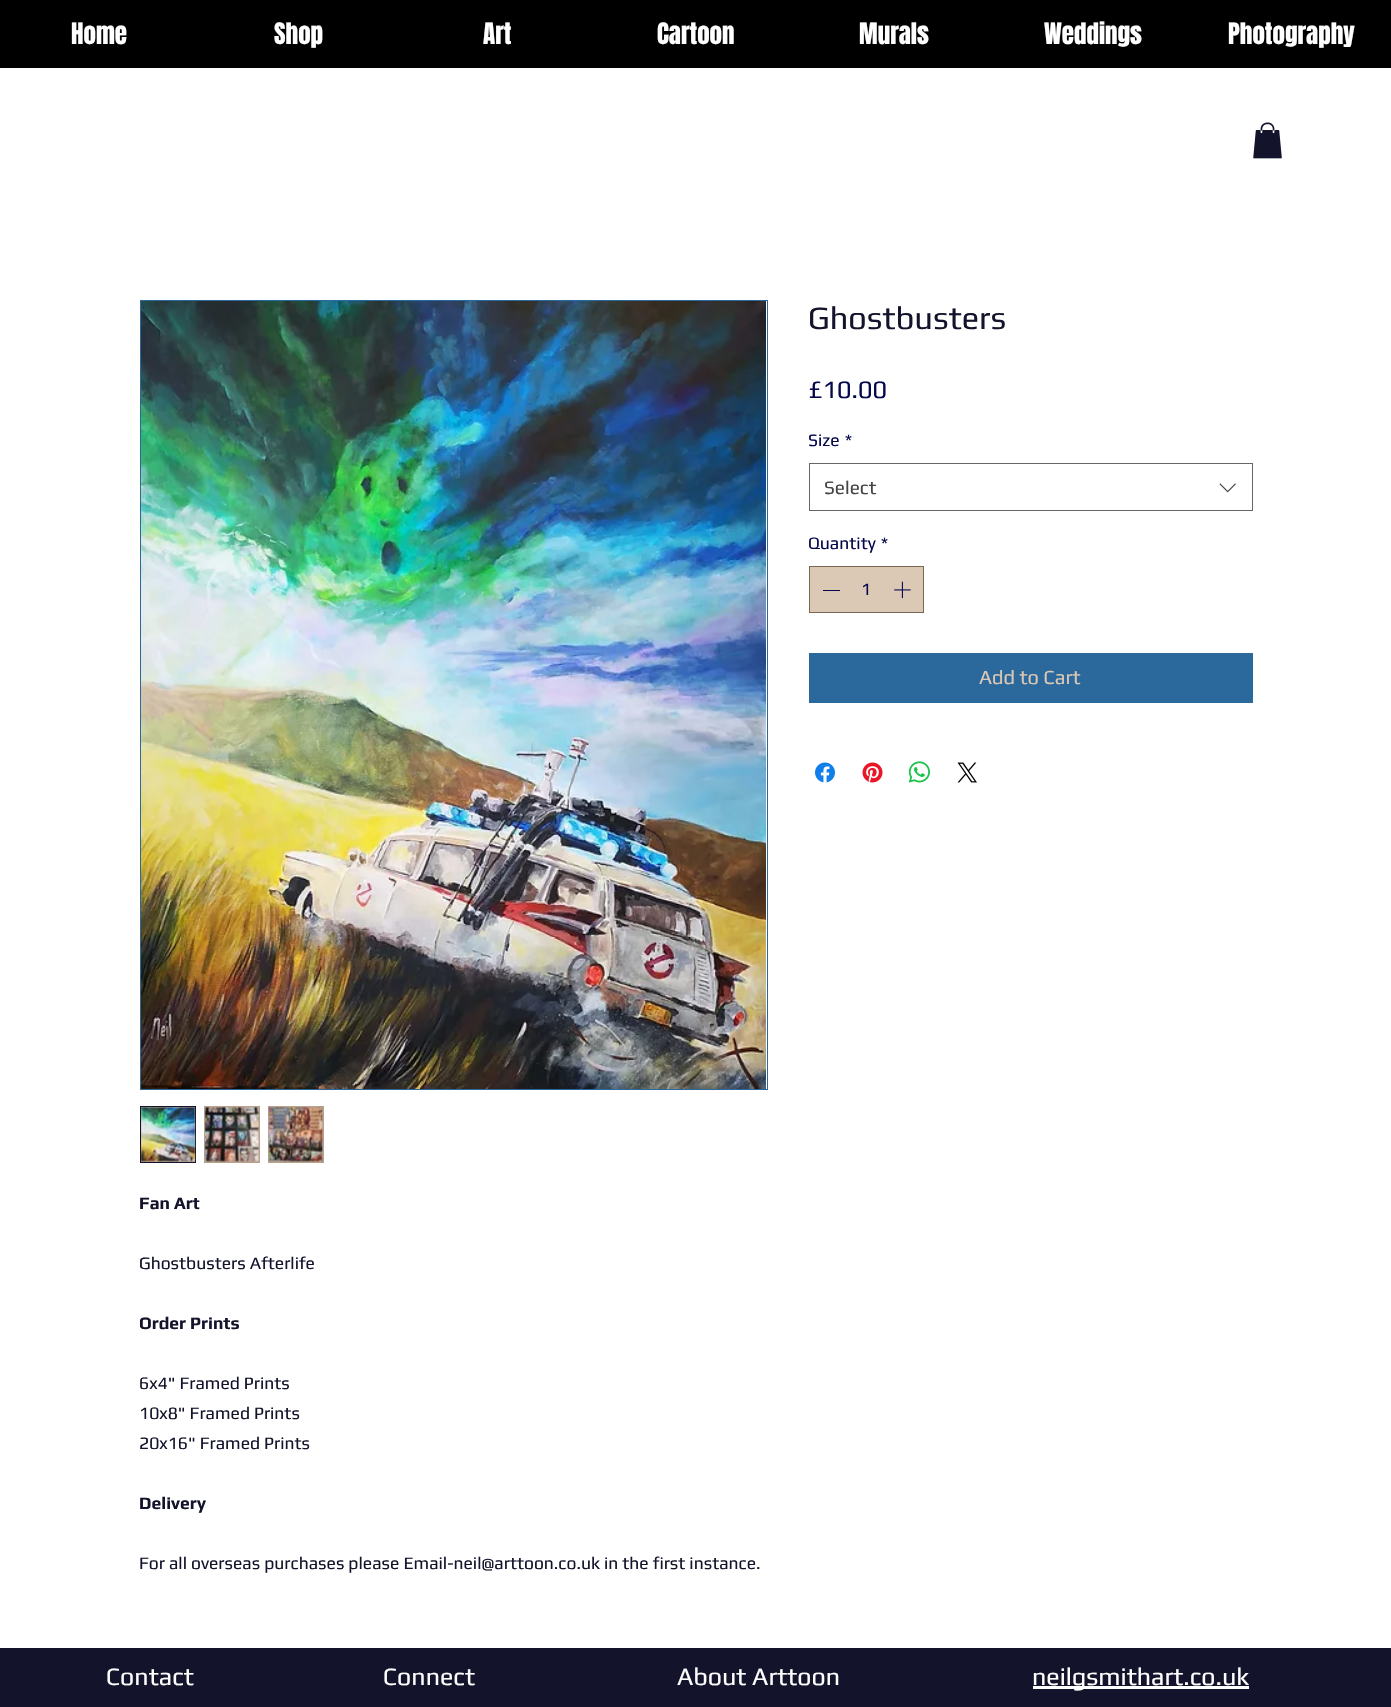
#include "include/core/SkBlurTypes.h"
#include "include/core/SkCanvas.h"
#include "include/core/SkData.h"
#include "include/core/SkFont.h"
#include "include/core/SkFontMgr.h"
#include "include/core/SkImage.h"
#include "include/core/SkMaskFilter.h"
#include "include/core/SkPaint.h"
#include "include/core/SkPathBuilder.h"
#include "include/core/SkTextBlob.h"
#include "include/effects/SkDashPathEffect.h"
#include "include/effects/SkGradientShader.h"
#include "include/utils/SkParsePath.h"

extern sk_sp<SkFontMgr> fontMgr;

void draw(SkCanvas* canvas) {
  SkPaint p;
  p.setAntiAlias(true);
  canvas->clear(SK_ColorWHITE);
  p.setColor(SK_ColorBLACK);
  canvas->drawRect(SkRect::MakeLTRB(0, 0, 1391, 68), p);
  canvas->drawImageRect(SkImages::DeferredFromEncodedData(SkData::MakeFromFileName("images/1.png")), SkRect::MakeLTRB(1253, 122, 1282, 159), SkSamplingOptions());
  p.setStyle(SkPaint::kStroke_Style);
  p.setStrokeWidth(1);
  p.setColor(SkColorSetRGB(102, 102, 102));
  canvas->drawRect(SkRect::MakeLTRB(809.5f, 463.5f, 1252.5f, 510.5f), p);
  canvas->drawImageRect(SkImages::DeferredFromEncodedData(SkData::MakeFromFileName("images/2.png")), SkRect::MakeLTRB(1219, 483, 1236, 493), SkSamplingOptions());
  p.setStyle(SkPaint::kFill_Style);
  p.setColor(SkColorSetRGB(219, 200, 181));
  canvas->drawRect(SkRect::MakeLTRB(809.5f, 566.5f, 923.5f, 612.5f), p);
  p.setStyle(SkPaint::kStroke_Style);
  p.setColor(SkColorSetRGB(122, 102, 83));
  canvas->drawRect(SkRect::MakeLTRB(809.5f, 566.5f, 923.5f, 612.5f), p);
  p.setStyle(SkPaint::kFill_Style);
  p.setColor(SkColorSetRGB(5, 8, 77));
  canvas->drawRect(SkRect::MakeLTRB(823, 590, 840, 591), p);
  canvas->drawImageRect(SkImages::DeferredFromEncodedData(SkData::MakeFromFileName("images/3.png")), SkRect::MakeLTRB(894, 581, 911, 599), SkSamplingOptions());
  p.setColor(SkColorSetRGB(43, 104, 156));
  canvas->drawRect(SkRect::MakeLTRB(809, 653, 1253, 703), p);
  canvas->drawImageRect(SkImages::DeferredFromEncodedData(SkData::MakeFromFileName("images/4.png")), SkRect::MakeLTRB(815, 762, 835, 783), SkSamplingOptions());
  canvas->drawImageRect(SkImages::DeferredFromEncodedData(SkData::MakeFromFileName("images/5.png")), SkRect::MakeLTRB(862, 762, 883, 783), SkSamplingOptions());
  canvas->drawImageRect(SkImages::DeferredFromEncodedData(SkData::MakeFromFileName("images/6.png")), SkRect::MakeLTRB(908, 761, 930, 783), SkSamplingOptions());
  canvas->drawImageRect(SkImages::DeferredFromEncodedData(SkData::MakeFromFileName("images/7.png")), SkRect::MakeLTRB(957, 762, 977, 783), SkSamplingOptions());
  p.setStyle(SkPaint::kStroke_Style);
  canvas->drawRect(SkRect::MakeLTRB(140.5f, 300.5f, 767.5f, 1089.5f), p);
  canvas->drawImageRect(SkImages::DeferredFromEncodedData(SkData::MakeFromFileName("images/8.png")), SkRect::MakeLTRB(141, 301, 766, 1089), SkSamplingOptions());
  p.setStyle(SkPaint::kFill_Style);
  p.setColor(SkColorSetRGB(184, 162, 142));
  canvas->drawRect(SkRect::MakeLTRB(140.5f, 1106.5f, 195.5f, 1162.5f), p);
  p.setStyle(SkPaint::kStroke_Style);
  p.setColor(SkColorSetRGB(19, 20, 43));
  canvas->drawRect(SkRect::MakeLTRB(140.5f, 1106.5f, 195.5f, 1162.5f), p);
  canvas->drawImageRect(SkImages::DeferredFromEncodedData(SkData::MakeFromFileName("images/9.png")), SkRect::MakeLTRB(141, 1107, 196, 1162), SkSamplingOptions());
  p.setStyle(SkPaint::kFill_Style);
  p.setColor(SkColorSetRGB(184, 162, 142));
  canvas->drawRect(SkRect::MakeLTRB(204, 1106, 260, 1163), p);
  canvas->drawImageRect(SkImages::DeferredFromEncodedData(SkData::MakeFromFileName("images/10.png")), SkRect::MakeLTRB(204, 1107, 260, 1162), SkSamplingOptions());
  canvas->drawRect(SkRect::MakeLTRB(268, 1106, 324, 1163), p);
  canvas->drawImageRect(SkImages::DeferredFromEncodedData(SkData::MakeFromFileName("images/11.png")), SkRect::MakeLTRB(268, 1107, 323, 1162), SkSamplingOptions());
  p.setColor(SkColorSetRGB(19, 20, 43));
  canvas->drawRect(SkRect::MakeLTRB(0, 1648, 1391, 1707), p);
  p.setColor(SK_ColorWHITE);
  canvas->drawRect(SkRect::MakeLTRB(1033, 1686, 1249, 1689), p);
  SkFont font1(fontMgr->matchFamilyStyle("Anton", SkFontStyle::Normal()), 25);
  font1.setSubpixel(true);
  canvas->drawString("Home", 71, 44, font1, p);
  canvas->drawString("Shop", 274, 44, font1, p);
  canvas->drawString("Art", 483, 44, font1, p);
  canvas->drawString("Cartoon", 657, 44, font1, p);
  canvas->drawString("Murals", 859, 44, font1, p);
  canvas->drawString("Weddings", 1044, 44, font1, p);
  canvas->drawString("Photography", 1228, 44, font1, p);
  SkFont font2(fontMgr->matchFamilyStyle("Play", SkFontStyle::Normal()), 32.5f);
  font2.setSubpixel(true);
  p.setColor(SkColorSetRGB(19, 20, 43));
  canvas->drawString("Ghostbusters", 808, 329, font2, p);
  SkFont font3(fontMgr->matchFamilyStyle("Play", SkFontStyle::Normal()), 25);
  font3.setSubpixel(true);
  p.setColor(SkColorSetRGB(5, 8, 77));
  canvas->drawString("£10.00", 808, 398, font3, p);
  SkFont font4(fontMgr->matchFamilyStyle("Play", SkFontStyle::Normal()), 17.5f);
  font4.setSubpixel(true);
  canvas->drawString("Size", 808, 446, font4, p);
  canvas->drawString("*", 845, 446, font4, p);
  SkFont font5(fontMgr->matchFamilyStyle("Play", SkFontStyle::Normal()), 19);
  font5.setSubpixel(true);
  p.setColor(SkColorSetRGB(68, 68, 68));
  canvas->drawString("Select", 824, 494, font5, p);
  p.setColor(SkColorSetRGB(5, 8, 77));
  canvas->drawString("Quantity", 808, 549, font4, p);
  canvas->drawString("*", 881, 549, font4, p);
  canvas->drawString("1", 861, 595, font4, p);
  SkFont font6(fontMgr->matchFamilyStyle("Play", SkFontStyle::Normal()), 20);
  font6.setSubpixel(true);
  p.setColor(SkColorSetRGB(219, 200, 181));
  canvas->drawString("Add to Cart", 979, 684, font6, p);
  SkFont font7(fontMgr->matchFamilyStyle("Play", SkFontStyle::Bold()), 17.5f);
  font7.setSubpixel(true);
  p.setColor(SkColorSetRGB(19, 20, 43));
  canvas->drawString("Fan Art", 139, 1209, font7, p);
  canvas->drawString("Ghostbusters Afterlife", 139, 1269, font4, p);
  canvas->drawString("Order Prints", 139, 1329, font7, p);
  canvas->drawString("6x4\" Framed Prints", 139, 1389, font4, p);
  canvas->drawString("10x8\" Framed Prints", 139, 1419, font4, p);
  canvas->drawString("20x16\" Framed Prints", 139, 1449, font4, p);
  canvas->drawString("Delivery", 139, 1509, font7, p);
  canvas->drawString("For all overseas purchases please Email-neil@arttoon.co.uk in the first instance.", 139, 1569, font4, p);
  p.setColor(SK_ColorWHITE);
  canvas->drawString("Contact", 106, 1685, font3, p);
  canvas->drawString("Connect", 383, 1685, font3, p);
  canvas->drawString("About Arttoon", 677, 1685, font3, p);
  canvas->drawString("neilgsmithart.co.uk", 1032, 1685, font3, p);
}
